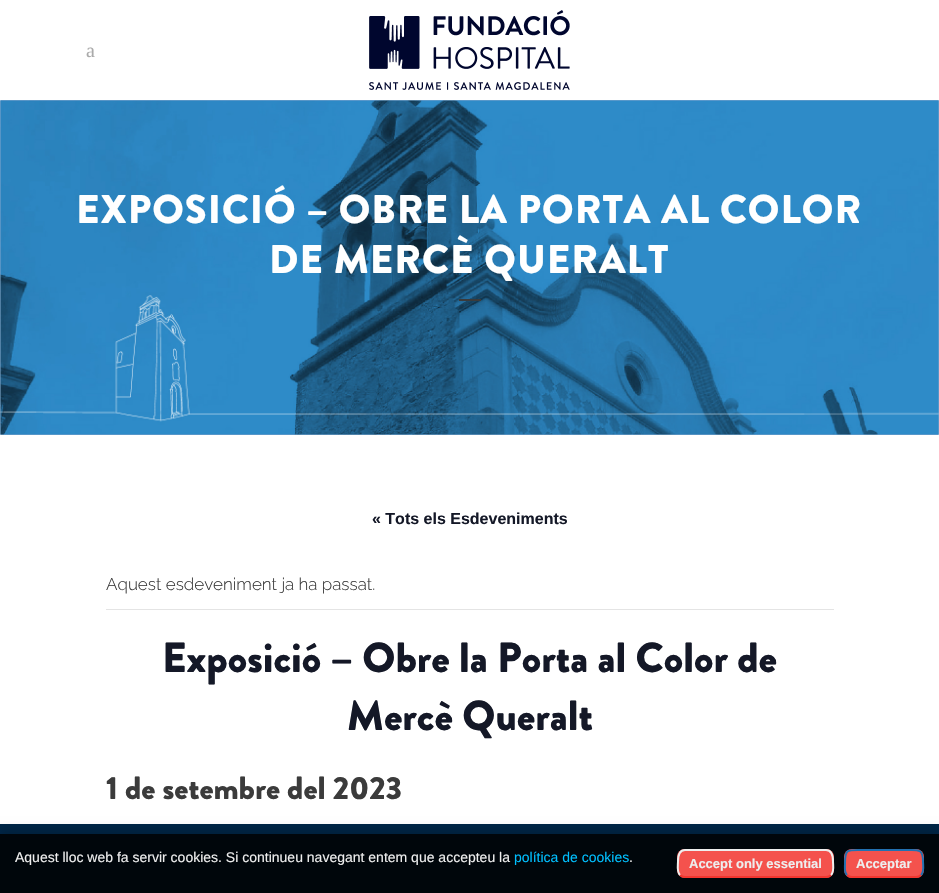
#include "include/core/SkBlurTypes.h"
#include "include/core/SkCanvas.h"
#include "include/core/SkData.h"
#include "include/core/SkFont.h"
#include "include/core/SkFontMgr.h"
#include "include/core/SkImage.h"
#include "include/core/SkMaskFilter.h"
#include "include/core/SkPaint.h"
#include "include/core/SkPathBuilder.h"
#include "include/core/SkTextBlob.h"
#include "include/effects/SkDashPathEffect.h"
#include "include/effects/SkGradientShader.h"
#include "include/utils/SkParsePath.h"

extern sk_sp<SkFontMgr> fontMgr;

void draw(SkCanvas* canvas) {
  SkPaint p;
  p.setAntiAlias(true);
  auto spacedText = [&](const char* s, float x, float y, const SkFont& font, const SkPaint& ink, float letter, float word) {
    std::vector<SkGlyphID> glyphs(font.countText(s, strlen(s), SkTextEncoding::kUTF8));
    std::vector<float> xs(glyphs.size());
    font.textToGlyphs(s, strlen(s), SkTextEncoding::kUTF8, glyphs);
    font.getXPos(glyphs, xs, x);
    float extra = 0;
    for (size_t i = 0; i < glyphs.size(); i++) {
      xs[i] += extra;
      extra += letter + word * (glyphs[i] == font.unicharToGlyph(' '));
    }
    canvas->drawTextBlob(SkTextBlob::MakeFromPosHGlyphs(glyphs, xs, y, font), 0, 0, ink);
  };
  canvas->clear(SK_ColorWHITE);
  canvas->drawImageRect(SkImages::DeferredFromEncodedData(SkData::MakeFromFileName("images/1.png")), SkRect::MakeLTRB(369, 10, 570, 90), SkSamplingOptions());
  canvas->drawImageRect(SkImages::DeferredFromEncodedData(SkData::MakeFromFileName("images/2.png")), SkRect::MakeLTRB(0, 100, 939, 435), SkSamplingOptions());
  p.setColor(SkColorSetRGB(59, 59, 59));
  canvas->drawRect(SkRect::MakeLTRB(459, 299, 481, 301), p);
  p.setColor(SkColorSetRGB(228, 228, 228));
  canvas->drawRect(SkRect::MakeLTRB(106, 609, 834, 610), p);
  p.setColor(SkColorSetRGB(0, 38, 71));
  canvas->drawRect(SkRect::MakeLTRB(0, 824, 939, 834), p);
  p.setColor(SkColorSetARGB(51, 0, 0, 0));
  p.setMaskFilter(SkMaskFilter::MakeBlur(kNormal_SkBlurStyle, 5));
  canvas->drawRect(SkRect::MakeLTRB(0, 831, 939, 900), p);
  p.setMaskFilter(nullptr);
  p.setColor(SkColorSetRGB(0, 6, 11));
  canvas->drawRect(SkRect::MakeLTRB(0, 834, 939, 893), p);
  p.setColor(SkColorSetRGB(244, 82, 77));
  canvas->drawRoundRect(SkRect::MakeLTRB(677, 849, 834, 878), 8, 8, p);
  p.setStyle(SkPaint::kStroke_Style);
  p.setStrokeWidth(2);
  p.setColor(SkColorSetRGB(242, 54, 48));
  canvas->drawPath(SkPathBuilder().moveTo(831, 875).cubicTo(829.5f, 876.5f, 828, 877, 826, 877).lineTo(685, 877).cubicTo(683, 877, 681.5f, 876.5f, 680, 875).detach(), p);
  p.setColor(SkColorSetRGB(238, 238, 238));
  canvas->drawPath(SkPathBuilder().moveTo(680, 875).cubicTo(676.5f, 871.5f, 678, 865.5f, 678, 861.5f).cubicTo(678, 856.5f, 678.5f, 850, 685, 850).lineTo(826, 850).cubicTo(832.5f, 850, 833, 856.5f, 833, 861.5f).cubicTo(833, 865.5f, 834.5f, 871.5f, 831, 875).detach(), p);
  p.setStyle(SkPaint::kFill_Style);
  p.setColor(SkColorSetRGB(244, 82, 77));
  canvas->drawRoundRect(SkRect::MakeLTRB(844, 849, 924, 878), 8, 8, p);
  p.setStyle(SkPaint::kStroke_Style);
  p.setColor(SkColorSetRGB(242, 54, 48));
  canvas->drawPath(SkPathBuilder().moveTo(921, 875).cubicTo(919.5f, 876.5f, 918, 877, 916, 877).lineTo(852, 877).cubicTo(850, 877, 848.5f, 876.5f, 847, 875).detach(), p);
  p.setColor(SkColorSetRGB(34, 113, 177));
  canvas->drawPath(SkPathBuilder().moveTo(847, 875).cubicTo(844, 872, 845, 867.5f, 845, 863.5f).cubicTo(845, 848.5f, 847.5f, 850, 862.5f, 850).lineTo(905.5f, 850).cubicTo(918, 850, 923, 848, 923, 861.5f).cubicTo(923, 865.5f, 924.5f, 871.5f, 921, 875).detach(), p);
  SkFont font1(fontMgr->matchFamilyStyle("Liberation Serif", SkFontStyle::Normal()), 20);
  font1.setSubpixel(true);
  p.setStyle(SkPaint::kFill_Style);
  p.setColor(SkColorSetRGB(170, 170, 170));
  canvas->drawString("a", 86, 57, font1, p);
  SkFont font2(fontMgr->matchFamilyStyle("Brandon Grotesque", SkFontStyle(900, SkFontStyle::kNormal_Width, SkFontStyle::kUpright_Slant)), 40);
  font2.setSubpixel(true);
  p.setColor(SK_ColorWHITE);
  spacedText("EXPOSICIÓ – OBRE LA PORTA AL COLOR", 76, 223, font2, p, 1, 0);
  spacedText("DE MERCÈ QUERALT", 269, 273, font2, p, 1, 0);
  SkFont font3(fontMgr->matchFamilyStyle("Liberation Sans", SkFontStyle::Bold()), 16);
  font3.setSubpixel(true);
  p.setColor(SkColorSetRGB(20, 24, 39));
  canvas->drawString("« Tots els Esdeveniments", 372, 524, font3, p);
  SkFont font4(fontMgr->matchFamilyStyle("Raleway", SkFontStyle(300, SkFontStyle::kNormal_Width, SkFontStyle::kUpright_Slant)), 17);
  font4.setSubpixel(true);
  p.setColor(SkColorSetRGB(59, 59, 59));
  canvas->drawString("Aquest esdeveniment ja ha passat.", 106, 590, font4, p);
  SkFont font5(fontMgr->matchFamilyStyle("Brandon Grotesque", SkFontStyle(900, SkFontStyle::kNormal_Width, SkFontStyle::kUpright_Slant)), 42);
  font5.setSubpixel(true);
  p.setColor(SkColorSetRGB(20, 24, 39));
  canvas->drawString("Exposició – Obre la Porta al Color de", 162, 672, font5, p);
  canvas->drawString("Mercè Queralt", 347, 730, font5, p);
  SkFont font6(fontMgr->matchFamilyStyle("Brandon Grotesque", SkFontStyle(900, SkFontStyle::kNormal_Width, SkFontStyle::kUpright_Slant)), 32);
  font6.setSubpixel(true);
  p.setColor(SkColorSetRGB(59, 59, 59));
  canvas->drawString("1 de setembre del 2023", 106, 799, font6, p);
  SkFont font7(fontMgr->matchFamilyStyle("Liberation Sans", SkFontStyle::Normal()), 14);
  font7.setSubpixel(true);
  p.setColor(SkColorSetRGB(238, 238, 238));
  canvas->drawString("Aquest lloc web fa servir cookies. Si continueu navegant entem que accepteu la", 15, 862, font7, p);
  p.setColor(SkColorSetRGB(0, 191, 255));
  canvas->drawString("política de cookies", 514, 862, font7, p);
  p.setColor(SkColorSetRGB(238, 238, 238));
  canvas->drawString(".", 629, 862, font7, p);
  SkFont font8(fontMgr->matchFamilyStyle("Liberation Sans", SkFontStyle::Bold()), 13);
  font8.setSubpixel(true);
  canvas->drawString("Accept only essential", 689, 868, font8, p);
  canvas->drawString("Acceptar", 856, 868, font8, p);
}
